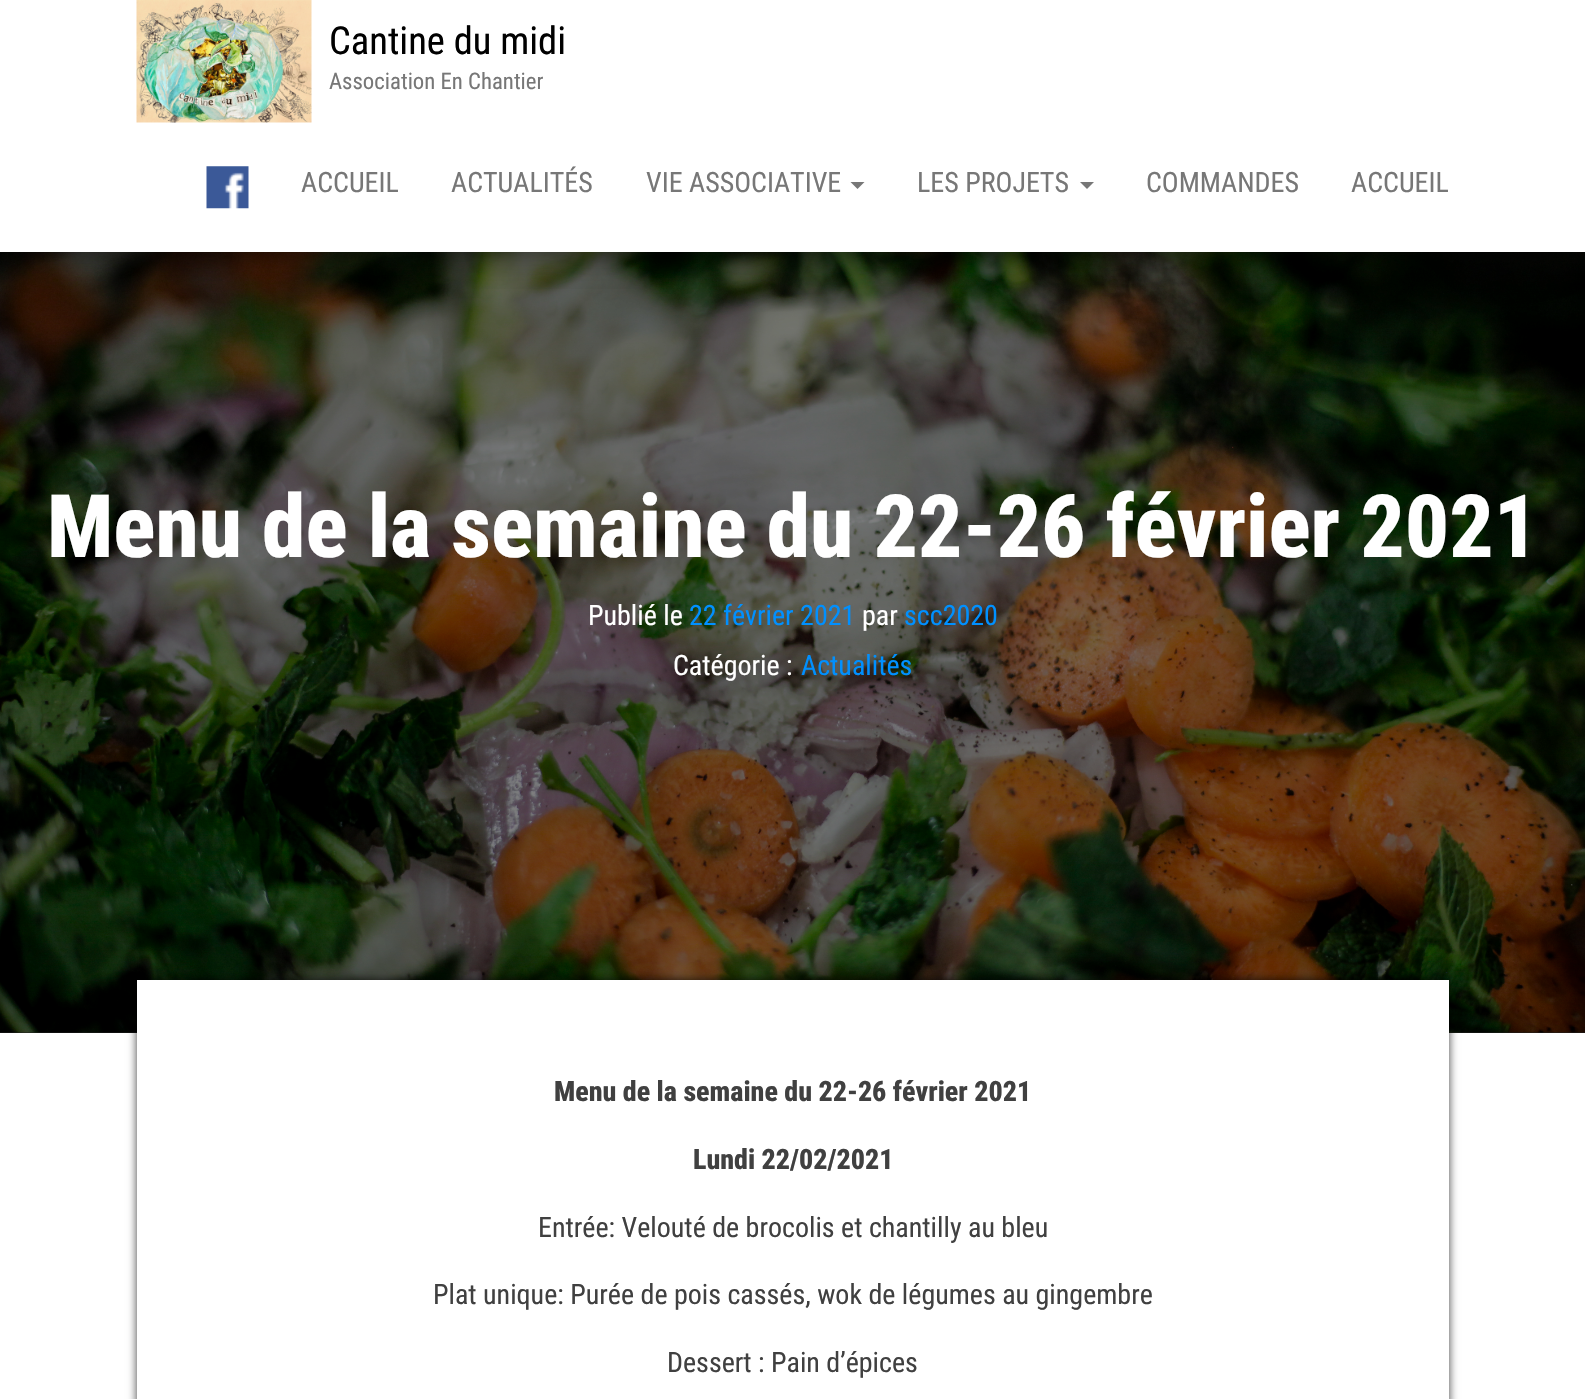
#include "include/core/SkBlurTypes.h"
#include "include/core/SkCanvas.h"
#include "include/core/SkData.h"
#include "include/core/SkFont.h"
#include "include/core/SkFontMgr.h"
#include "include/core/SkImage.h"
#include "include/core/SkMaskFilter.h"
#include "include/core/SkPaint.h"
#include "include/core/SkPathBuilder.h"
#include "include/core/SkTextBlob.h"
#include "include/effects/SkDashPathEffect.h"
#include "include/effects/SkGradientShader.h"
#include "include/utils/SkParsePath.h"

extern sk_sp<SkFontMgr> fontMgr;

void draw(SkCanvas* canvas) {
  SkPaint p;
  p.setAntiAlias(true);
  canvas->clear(SK_ColorWHITE);
  p.setColor(SkColorSetRGB(30, 30, 30));
  canvas->drawRect(SkRect::MakeLTRB(0, 1032, 1585, 1033), p);
  canvas->drawImageRect(SkImages::DeferredFromEncodedData(SkData::MakeFromFileName("images/3.png")), SkRect::MakeLTRB(0, 252, 1585, 1033), SkSamplingOptions());
  p.setColor(SkColorSetARGB(51, 0, 0, 0));
  p.setMaskFilter(SkMaskFilter::MakeBlur(kNormal_SkBlurStyle, 9));
  canvas->drawRect(SkRect::MakeLTRB(9, 23, 1577, 257), p);
  p.setMaskFilter(nullptr);
  p.setColor(SkColorSetARGB(31, 0, 0, 0));
  p.setMaskFilter(SkMaskFilter::MakeBlur(kNormal_SkBlurStyle, 17.5f));
  canvas->drawRect(SkRect::MakeLTRB(0, 5, 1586, 257), p);
  p.setMaskFilter(nullptr);
  p.setColor(SkColorSetARGB(107, 0, 0, 0));
  p.setMaskFilter(SkMaskFilter::MakeBlur(kNormal_SkBlurStyle, 17.5f));
  canvas->drawRect(SkRect::MakeLTRB(21, 39, 1565, 249), p);
  p.setMaskFilter(nullptr);
  p.setColor(SK_ColorWHITE);
  canvas->drawRect(SkRect::MakeLTRB(0, 0, 1585, 252), p);
  canvas->drawImageRect(SkImages::DeferredFromEncodedData(SkData::MakeFromFileName("images/1.png")), SkRect::MakeLTRB(136, 0, 312, 123), SkSamplingOptions());
  canvas->drawImageRect(SkImages::DeferredFromEncodedData(SkData::MakeFromFileName("images/2.png")), SkRect::MakeLTRB(206, 166, 249, 209), SkSamplingOptions());
  p.setColor(SkColorSetRGB(119, 119, 119));
  canvas->drawPath(SkPathBuilder().moveTo(850.5f, 182).lineTo(864.5f, 182).lineTo(857.5f, 189).close().detach(), p);
  canvas->drawPath(SkPathBuilder().moveTo(1080, 182).lineTo(1094, 182).lineTo(1087, 189).close().detach(), p);
  p.setColor(SkColorSetARGB(191, 0, 0, 0));
  p.setMaskFilter(SkMaskFilter::MakeBlur(kNormal_SkBlurStyle, 4.5f));
  canvas->drawRect(SkRect::MakeLTRB(137, 980, 1449, 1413), p);
  p.setMaskFilter(nullptr);
  p.setColor(SK_ColorWHITE);
  canvas->drawRect(SkRect::MakeLTRB(137, 980, 1449, 1399), p);
  SkFont font1(fontMgr->matchFamilyStyle("Roboto Condensed", SkFontStyle::Normal()), 38.5f);
  font1.setSubpixel(true);
  p.setColor(SK_ColorBLACK);
  canvas->drawString("Cantine du midi", 329, 54, font1, p);
  SkFont font2(fontMgr->matchFamilyStyle("Roboto Condensed", SkFontStyle::Normal()), 22.75f);
  font2.setSubpixel(true);
  p.setColor(SkColorSetRGB(119, 119, 119));
  canvas->drawString("Association En Chantier", 329, 89, font2, p);
  SkFont font3(fontMgr->matchFamilyStyle("Roboto Condensed", SkFontStyle::Normal()), 28);
  font3.setSubpixel(true);
  canvas->drawString("ACCUEIL", 301, 192, font3, p);
  canvas->drawString("ACTUALITÉS", 451, 192, font3, p);
  canvas->drawString("VIE ASSOCIATIVE", 646, 192, font3, p);
  canvas->drawString("LES PROJETS", 917, 192, font3, p);
  canvas->drawString("COMMANDES", 1146, 192, font3, p);
  canvas->drawString("ACCUEIL", 1351, 192, font3, p);
  SkFont font4(fontMgr->matchFamilyStyle("Roboto Condensed", SkFontStyle(800, SkFontStyle::kNormal_Width, SkFontStyle::kUpright_Slant)), 87.5f);
  font4.setSubpixel(true);
  p.setColor(SK_ColorWHITE);
  canvas->drawString("Menu de la semaine du 22-26 février 2021", 47, 557, font4, p);
  canvas->drawString("Publié le", 588, 625, font3, p);
  p.setColor(SkColorSetRGB(0, 144, 255));
  canvas->drawString("22 février 2021", 689, 625, font3, p);
  p.setColor(SK_ColorWHITE);
  canvas->drawString("par", 862, 625, font3, p);
  p.setColor(SkColorSetRGB(0, 144, 255));
  canvas->drawString("scc2020", 904, 625, font3, p);
  p.setColor(SK_ColorWHITE);
  canvas->drawString("Catégorie :", 673, 675, font3, p);
  p.setColor(SkColorSetRGB(0, 144, 255));
  canvas->drawString("Actualités", 801, 675, font3, p);
  SkFont font5(fontMgr->matchFamilyStyle("Roboto Condensed", SkFontStyle(800, SkFontStyle::kNormal_Width, SkFontStyle::kUpright_Slant)), 28);
  font5.setSubpixel(true);
  p.setColor(SkColorSetRGB(64, 64, 64));
  canvas->drawString("Menu de la semaine du 22-26 février 2021", 554, 1101, font5, p);
  canvas->drawString("Lundi 22/02/2021", 693, 1169, font5, p);
  canvas->drawString("Entrée: Velouté de brocolis et chantilly au bleu", 538, 1237, font3, p);
  canvas->drawString("Plat unique: Purée de pois cassés, wok de légumes au gingembre", 433, 1304, font3, p);
  canvas->drawString("Dessert : Pain d’épices", 667, 1372, font3, p);
}
